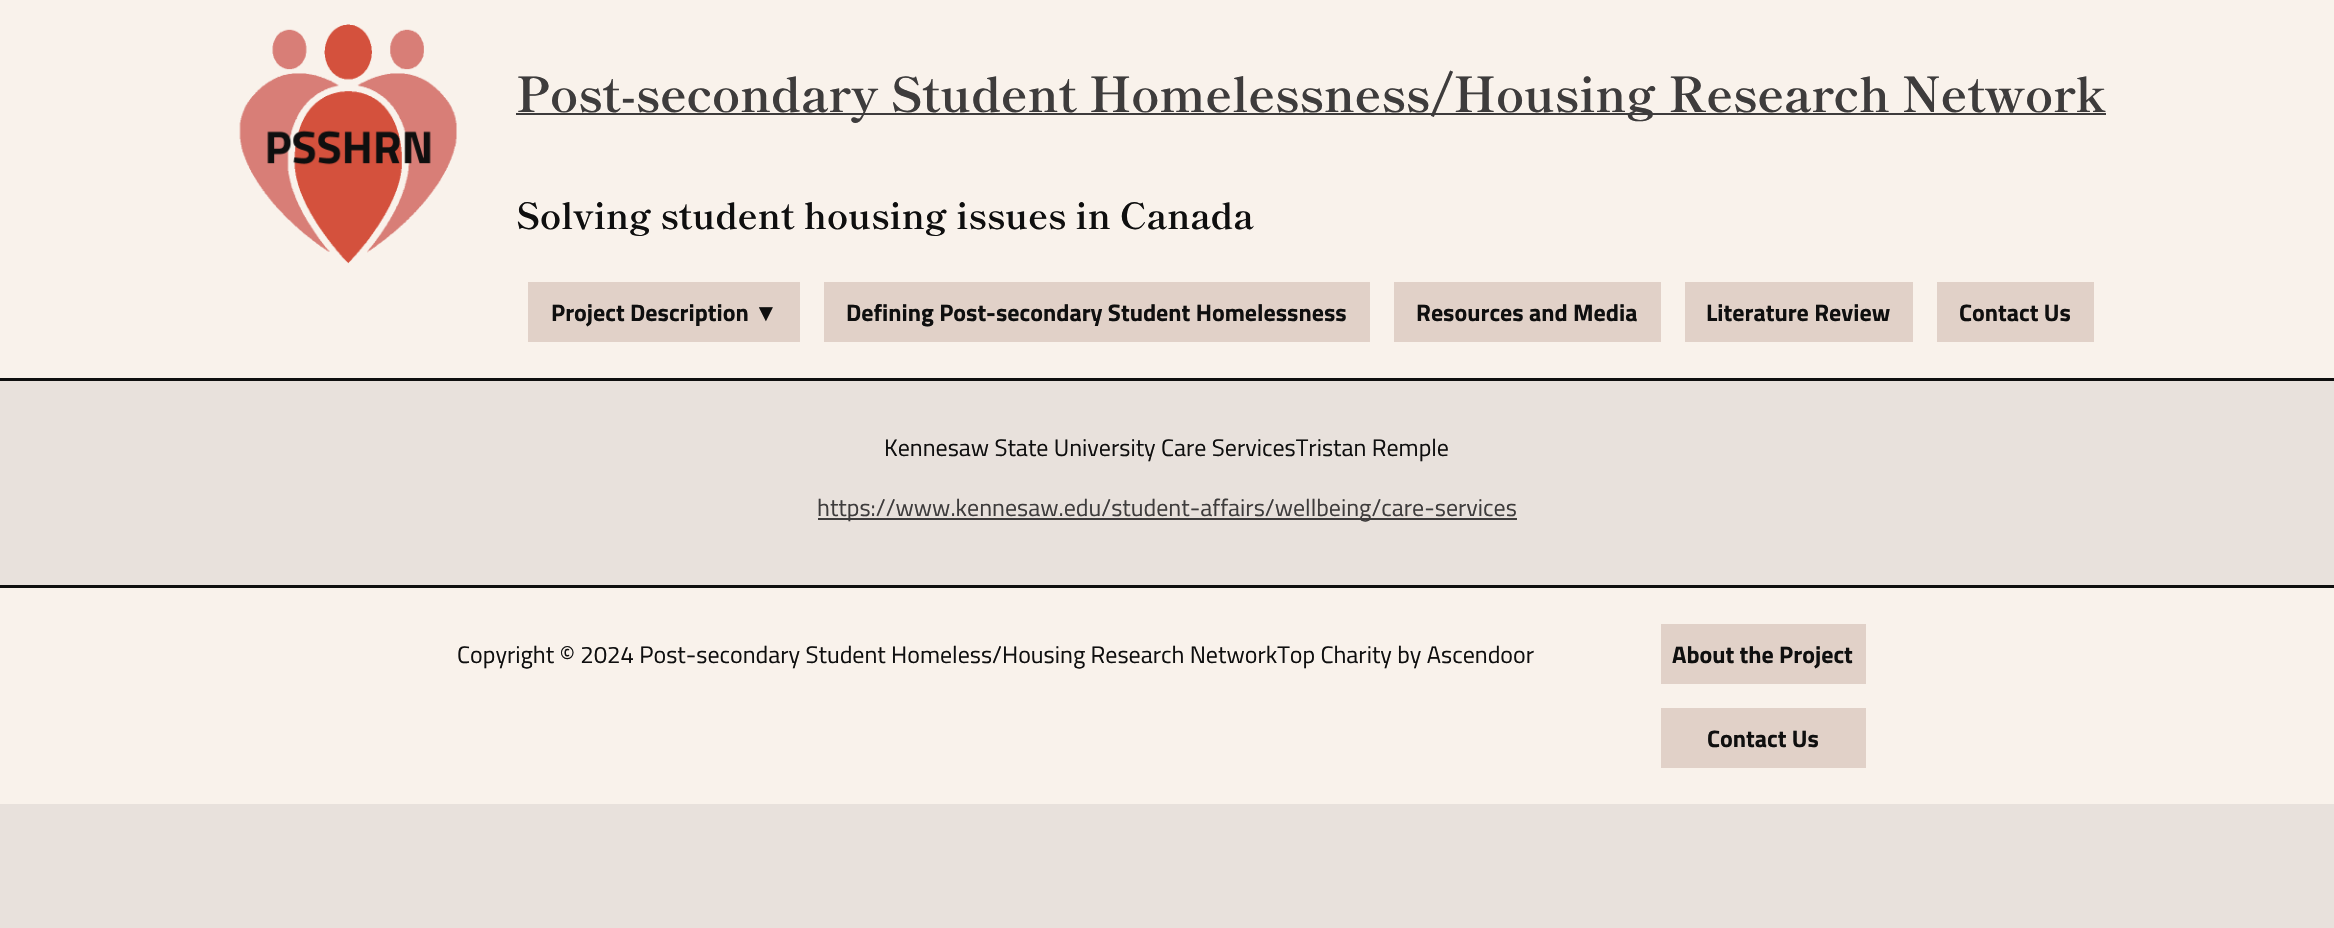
#include "include/core/SkBlurTypes.h"
#include "include/core/SkCanvas.h"
#include "include/core/SkData.h"
#include "include/core/SkFont.h"
#include "include/core/SkFontMgr.h"
#include "include/core/SkImage.h"
#include "include/core/SkMaskFilter.h"
#include "include/core/SkPaint.h"
#include "include/core/SkPathBuilder.h"
#include "include/core/SkTextBlob.h"
#include "include/effects/SkDashPathEffect.h"
#include "include/effects/SkGradientShader.h"
#include "include/utils/SkParsePath.h"

extern sk_sp<SkFontMgr> fontMgr;

void draw(SkCanvas* canvas) {
  SkPaint p;
  p.setAntiAlias(true);
  canvas->clear(SkColorSetRGB(232, 225, 220));
  p.setColor(SkColorSetRGB(249, 242, 235));
  canvas->drawRect(SkRect::MakeLTRB(0, 0, 2334, 378), p);
  p.setColor(SkColorSetRGB(15, 15, 15));
  canvas->drawRect(SkRect::MakeLTRB(0, 378, 2334, 381), p);
  canvas->drawImageRect(SkImages::DeferredFromEncodedData(SkData::MakeFromFileName("images/1.png")), SkRect::MakeLTRB(239, 24, 457, 264), SkSamplingOptions());
  p.setColor(SkColorSetRGB(62, 60, 60));
  canvas->drawRect(SkRect::MakeLTRB(516, 113, 2106, 115), p);
  p.setColor(SkColorSetRGB(225, 209, 200));
  canvas->drawRect(SkRect::MakeLTRB(528, 282, 800, 342), p);
  canvas->drawRect(SkRect::MakeLTRB(824, 282, 1370, 342), p);
  canvas->drawRect(SkRect::MakeLTRB(1394, 282, 1661, 342), p);
  canvas->drawRect(SkRect::MakeLTRB(1685, 282, 1913, 342), p);
  canvas->drawRect(SkRect::MakeLTRB(1937, 282, 2094, 342), p);
  p.setColor(SkColorSetRGB(62, 60, 60));
  canvas->drawRect(SkRect::MakeLTRB(818, 518, 1517, 520), p);
  p.setColor(SkColorSetRGB(249, 242, 235));
  canvas->drawRect(SkRect::MakeLTRB(0, 588, 2334, 804), p);
  p.setColor(SkColorSetRGB(15, 15, 15));
  canvas->drawRect(SkRect::MakeLTRB(0, 585, 2334, 588), p);
  p.setColor(SkColorSetRGB(225, 209, 200));
  canvas->drawRect(SkRect::MakeLTRB(1661, 624, 1866, 684), p);
  canvas->drawRect(SkRect::MakeLTRB(1661, 708, 1866, 768), p);
  SkFont font1(fontMgr->matchFamilyStyle("Shippori Mincho", SkFontStyle::Bold()), 48);
  font1.setSubpixel(true);
  p.setColor(SkColorSetRGB(62, 60, 60));
  canvas->drawString("Post-secondary Student Homelessness/Housing Research Network", 516, 112, font1, p);
  SkFont font2(fontMgr->matchFamilyStyle("Shippori Mincho", SkFontStyle::Bold()), 36);
  font2.setSubpixel(true);
  p.setColor(SkColorSetRGB(15, 15, 15));
  canvas->drawString("Solving student housing issues in Canada", 516, 229, font2, p);
  SkFont font3(fontMgr->matchFamilyStyle("Titillium Web", SkFontStyle::Bold()), 24);
  font3.setSubpixel(true);
  canvas->drawString("Project Description", 551, 321, font3, p);
  SkFont font4(fontMgr->matchFamilyStyle("Liberation Serif", SkFontStyle::Bold()), 24);
  font4.setSubpixel(true);
  canvas->drawString("▼", 754, 321, font4, p);
  canvas->drawString("Defining Post-secondary Student Homelessness", 846, 321, font3, p);
  canvas->drawString("Resources and Media", 1416, 321, font3, p);
  canvas->drawString("Literature Review", 1706, 321, font3, p);
  canvas->drawString("Contact Us", 1959, 321, font3, p);
  SkFont font5(fontMgr->matchFamilyStyle("Titillium Web", SkFontStyle::Normal()), 24);
  font5.setSubpixel(true);
  canvas->drawString("Kennesaw State University Care ServicesTristan Remple", 884, 456, font5, p);
  p.setColor(SkColorSetRGB(62, 60, 60));
  canvas->drawString("https://www.kennesaw.edu/student-affairs/wellbeing/care-services", 817, 516, font5, p);
  p.setColor(SkColorSetRGB(15, 15, 15));
  canvas->drawString("Copyright © 2024 Post-secondary Student Homeless/Housing Research NetworkTop Charity by Ascendoor", 457, 663, font5, p);
  canvas->drawString("About the Project", 1672, 663, font3, p);
  canvas->drawString("Contact Us", 1707, 747, font3, p);
}
